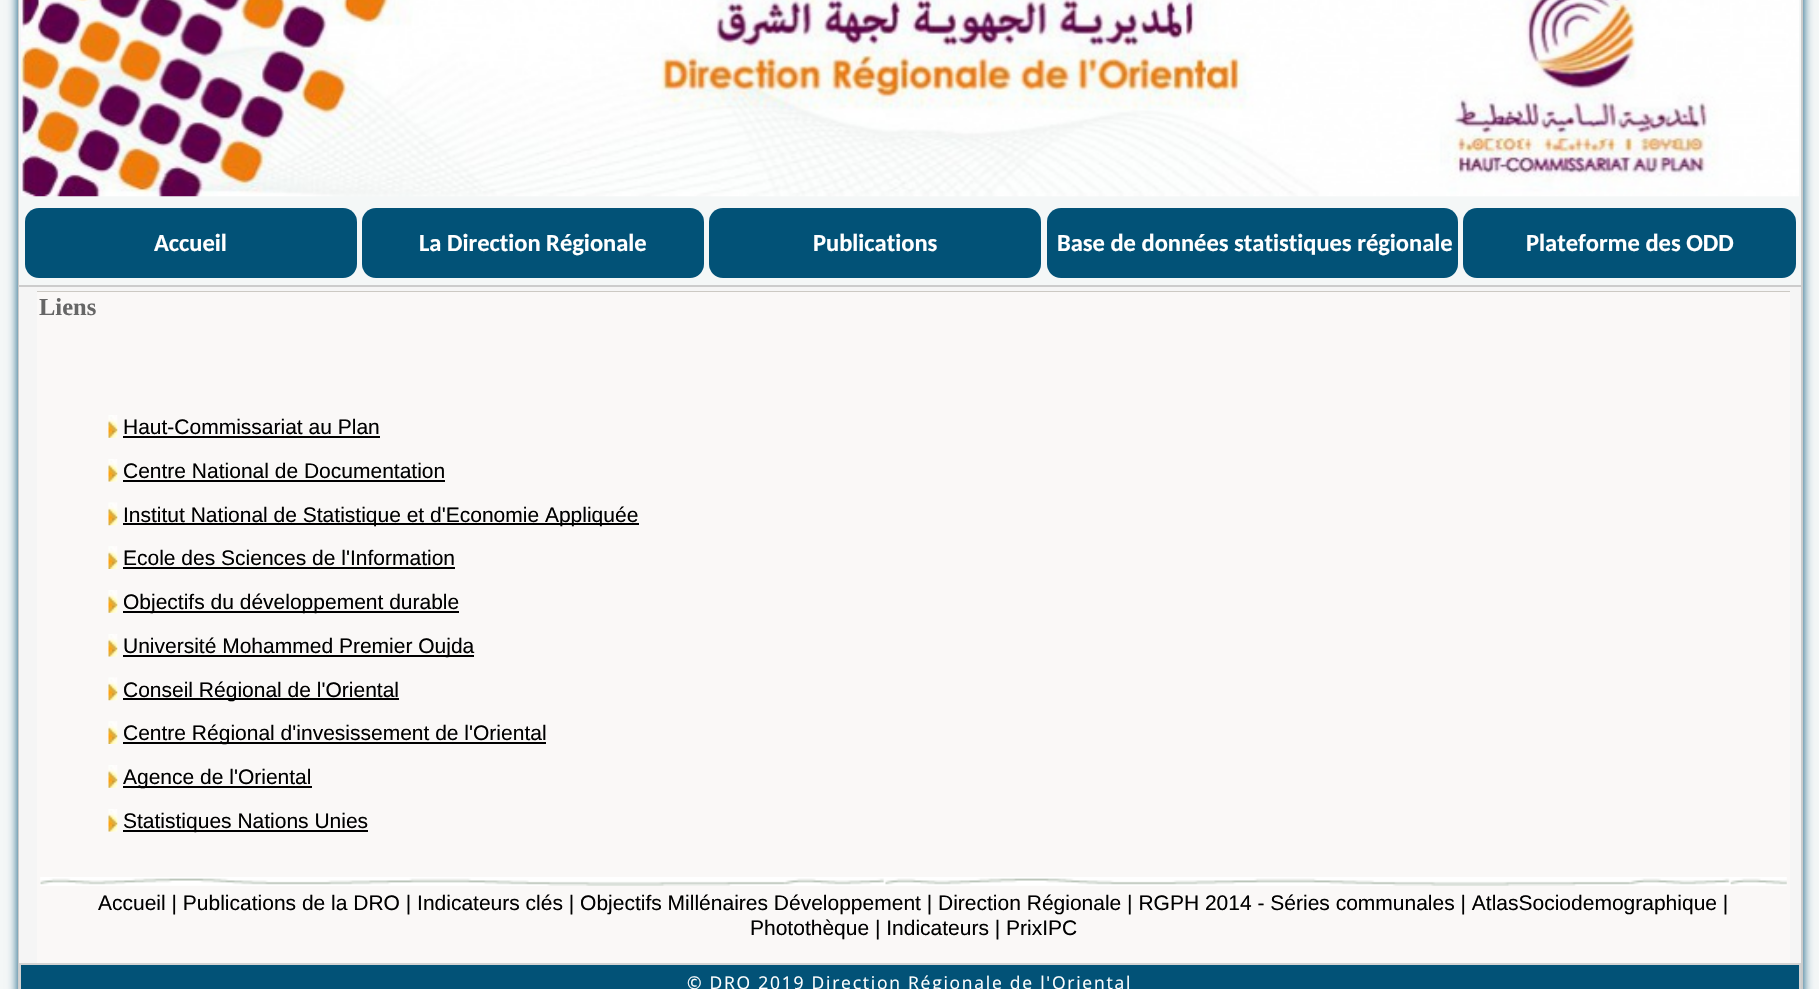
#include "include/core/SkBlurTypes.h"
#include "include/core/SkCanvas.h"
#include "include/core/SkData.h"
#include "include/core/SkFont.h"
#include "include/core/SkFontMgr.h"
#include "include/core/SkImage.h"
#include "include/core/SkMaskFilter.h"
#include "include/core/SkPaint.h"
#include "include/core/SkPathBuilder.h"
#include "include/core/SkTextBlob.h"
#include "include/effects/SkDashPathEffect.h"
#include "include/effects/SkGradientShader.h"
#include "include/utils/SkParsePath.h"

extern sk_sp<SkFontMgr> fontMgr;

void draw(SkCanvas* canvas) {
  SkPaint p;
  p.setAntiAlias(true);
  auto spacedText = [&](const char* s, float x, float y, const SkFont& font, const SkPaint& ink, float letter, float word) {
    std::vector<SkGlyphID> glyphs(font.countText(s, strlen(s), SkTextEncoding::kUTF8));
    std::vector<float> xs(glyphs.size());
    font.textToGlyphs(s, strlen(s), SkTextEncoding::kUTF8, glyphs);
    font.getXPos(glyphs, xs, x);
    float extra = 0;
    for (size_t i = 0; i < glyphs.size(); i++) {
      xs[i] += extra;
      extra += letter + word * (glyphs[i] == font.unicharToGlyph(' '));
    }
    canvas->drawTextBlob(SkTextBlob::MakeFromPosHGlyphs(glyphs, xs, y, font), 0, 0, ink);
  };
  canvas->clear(SkColorSetRGB(244, 247, 247));
  p.setColor(SkColorSetRGB(2, 82, 119));
  p.setMaskFilter(SkMaskFilter::MakeBlur(kNormal_SkBlurStyle, 5));
  canvas->drawRect(SkRect::MakeLTRB(18, -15, 1803, 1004), p);
  p.setMaskFilter(nullptr);
  p.setStyle(SkPaint::kStroke_Style);
  p.setStrokeWidth(2);
  p.setColor(SkColorSetRGB(204, 204, 204));
  canvas->drawRect(SkRect::MakeLTRB(19, -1, 1802, 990), p);
  p.setStyle(SkPaint::kFill_Style);
  p.setColor(SkColorSetRGB(244, 247, 247));
  canvas->drawRect(SkRect::MakeLTRB(19, 0, 1801, 285), p);
  p.setColor(SkColorSetRGB(204, 204, 204));
  canvas->drawRect(SkRect::MakeLTRB(19, 285, 1801, 287), p);
  canvas->drawImageRect(SkImages::DeferredFromEncodedData(SkData::MakeFromFileName("images/1.png")), SkRect::MakeLTRB(21, 0, 1799, 197), SkSamplingOptions());
  p.setColor(SkColorSetRGB(2, 82, 119));
  canvas->drawRoundRect(SkRect::MakeLTRB(25, 208, 357, 278), 14, 14, p);
  canvas->drawRoundRect(SkRect::MakeLTRB(362, 208, 704, 278), 14, 14, p);
  canvas->drawRoundRect(SkRect::MakeLTRB(709, 208, 1041, 278), 14, 14, p);
  canvas->drawRoundRect(SkRect::MakeLTRB(1047, 208, 1458, 278), 14, 14, p);
  canvas->drawRoundRect(SkRect::MakeLTRB(1463, 208, 1796, 278), 14, 14, p);
  p.setColor(SkColorSetRGB(245, 245, 245));
  canvas->drawRect(SkRect::MakeLTRB(19, 287, 1801, 963), p);
  p.setColor(SkColorSetRGB(204, 201, 195));
  canvas->drawRect(SkRect::MakeLTRB(37, 291, 1790, 292), p);
  p.setColor(SkColorSetRGB(250, 248, 247));
  canvas->drawRect(SkRect::MakeLTRB(37, 292, 1790, 963), p);
  canvas->drawImageRect(SkImages::DeferredFromEncodedData(SkData::MakeFromFileName("images/2.png")), SkRect::MakeLTRB(108, 415, 118, 438), SkSamplingOptions());
  p.setColor(SK_ColorBLACK);
  canvas->drawRect(SkRect::MakeLTRB(123, 436, 380, 438), p);
  canvas->drawImageRect(SkImages::DeferredFromEncodedData(SkData::MakeFromFileName("images/3.png")), SkRect::MakeLTRB(108, 459, 118, 482), SkSamplingOptions());
  canvas->drawRect(SkRect::MakeLTRB(123, 480, 445, 482), p);
  canvas->drawImageRect(SkImages::DeferredFromEncodedData(SkData::MakeFromFileName("images/4.png")), SkRect::MakeLTRB(108, 502, 118, 526), SkSamplingOptions());
  canvas->drawRect(SkRect::MakeLTRB(123, 523, 639, 525), p);
  canvas->drawImageRect(SkImages::DeferredFromEncodedData(SkData::MakeFromFileName("images/5.png")), SkRect::MakeLTRB(108, 546, 118, 569), SkSamplingOptions());
  canvas->drawRect(SkRect::MakeLTRB(123, 567, 455, 569), p);
  canvas->drawImageRect(SkImages::DeferredFromEncodedData(SkData::MakeFromFileName("images/2.png")), SkRect::MakeLTRB(108, 590, 118, 613), SkSamplingOptions());
  canvas->drawRect(SkRect::MakeLTRB(123, 611, 459, 613), p);
  canvas->drawImageRect(SkImages::DeferredFromEncodedData(SkData::MakeFromFileName("images/3.png")), SkRect::MakeLTRB(108, 634, 118, 657), SkSamplingOptions());
  canvas->drawRect(SkRect::MakeLTRB(123, 655, 474, 657), p);
  canvas->drawImageRect(SkImages::DeferredFromEncodedData(SkData::MakeFromFileName("images/4.png")), SkRect::MakeLTRB(108, 677, 118, 701), SkSamplingOptions());
  canvas->drawRect(SkRect::MakeLTRB(123, 698, 399, 700), p);
  canvas->drawImageRect(SkImages::DeferredFromEncodedData(SkData::MakeFromFileName("images/5.png")), SkRect::MakeLTRB(108, 721, 118, 744), SkSamplingOptions());
  canvas->drawRect(SkRect::MakeLTRB(123, 742, 546, 744), p);
  canvas->drawImageRect(SkImages::DeferredFromEncodedData(SkData::MakeFromFileName("images/2.png")), SkRect::MakeLTRB(108, 765, 118, 788), SkSamplingOptions());
  canvas->drawRect(SkRect::MakeLTRB(123, 786, 312, 788), p);
  canvas->drawImageRect(SkImages::DeferredFromEncodedData(SkData::MakeFromFileName("images/3.png")), SkRect::MakeLTRB(108, 809, 118, 832), SkSamplingOptions());
  canvas->drawRect(SkRect::MakeLTRB(123, 830, 368, 832), p);
  canvas->drawImageRect(SkImages::DeferredFromEncodedData(SkData::MakeFromFileName("images/6.png")), SkRect::MakeLTRB(40, 877, 1787, 886), SkSamplingOptions());
  p.setColor(SkColorSetRGB(2, 82, 119));
  canvas->drawRect(SkRect::MakeLTRB(20, 964, 1800, 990), p);
  p.setStyle(SkPaint::kStroke_Style);
  p.setColor(SkColorSetRGB(211, 211, 211));
  canvas->drawRect(SkRect::MakeLTRB(20, 964, 1800, 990), p);
  SkFont font1(fontMgr->matchFamilyStyle("Carlito", SkFontStyle::Bold()), 24.5f);
  font1.setSubpixel(true);
  p.setStyle(SkPaint::kFill_Style);
  p.setColor(SK_ColorWHITE);
  canvas->drawString("Accueil", 154, 251, font1, p);
  canvas->drawString("La Direction Régionale", 419, 251, font1, p);
  canvas->drawString("Publications", 813, 251, font1, p);
  canvas->drawString("Base de données statistiques régionale", 1057, 251, font1, p);
  canvas->drawString("Plateforme des ODD", 1526, 251, font1, p);
  SkFont font2(fontMgr->matchFamilyStyle("Liberation Serif", SkFontStyle::Bold()), 24.5f);
  font2.setSubpixel(true);
  p.setColor(SkColorSetRGB(102, 102, 102));
  canvas->drawString("Liens", 39, 315, font2, p);
  SkFont font3(fontMgr->matchFamilyStyle("Liberation Sans", SkFontStyle::Normal()), 21);
  font3.setSubpixel(true);
  p.setColor(SK_ColorBLACK);
  canvas->drawString("Haut-Commissariat au Plan", 123, 434, font3, p);
  canvas->drawString("Centre National de Documentation", 123, 478, font3, p);
  canvas->drawString("Institut National de Statistique et d'Economie Appliquée", 123, 522, font3, p);
  canvas->drawString("Ecole des Sciences de l'Information", 123, 565, font3, p);
  canvas->drawString("Objectifs du développement durable", 123, 609, font3, p);
  canvas->drawString("Université Mohammed Premier Oujda", 123, 653, font3, p);
  canvas->drawString("Conseil Régional de l'Oriental", 123, 697, font3, p);
  canvas->drawString("Centre Régional d'invesissement de l'Oriental", 123, 740, font3, p);
  canvas->drawString("Agence de l'Oriental", 123, 784, font3, p);
  canvas->drawString("Statistiques Nations Unies", 123, 828, font3, p);
  canvas->drawString("Accueil | Publications de la DRO | Indicateurs clés | Objectifs Millénaires Développement | Direction Régionale | RGPH 2014 - Séries communales | AtlasSociodemographique |", 98, 910, font3, p);
  canvas->drawString("Photothèque | Indicateurs | PrixIPC", 750, 935, font3, p);
  SkFont font4(fontMgr->matchFamilyStyle("Open Sans", SkFontStyle::Normal()), 17.5f);
  font4.setSubpixel(true);
  p.setColor(SK_ColorWHITE);
  spacedText("© DRO 2019 Direction Régionale de l'Oriental", 687, 989, font4, p, 1.75f, 0);
}
